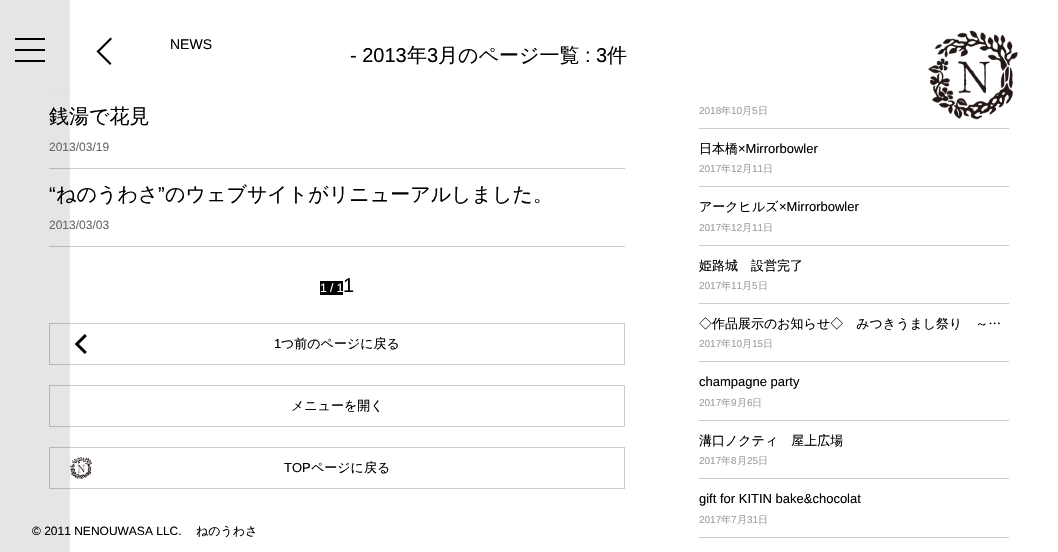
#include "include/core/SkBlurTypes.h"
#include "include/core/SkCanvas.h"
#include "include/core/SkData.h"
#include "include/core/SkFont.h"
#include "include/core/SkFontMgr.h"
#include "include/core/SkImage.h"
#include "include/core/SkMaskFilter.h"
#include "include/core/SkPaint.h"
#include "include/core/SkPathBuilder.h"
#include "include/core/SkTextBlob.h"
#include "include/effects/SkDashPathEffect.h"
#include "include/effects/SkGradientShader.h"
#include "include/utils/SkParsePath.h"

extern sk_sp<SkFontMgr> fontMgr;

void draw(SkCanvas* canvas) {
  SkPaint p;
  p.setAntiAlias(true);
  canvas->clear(SK_ColorWHITE);
  p.setColor(SkColorSetRGB(252, 252, 252));
  canvas->drawRect(SkRect::MakeLTRB(49, 90, 625, 91), p);
  p.setColor(SkColorSetRGB(204, 204, 204));
  canvas->drawRect(SkRect::MakeLTRB(49, 168, 625, 169), p);
  canvas->drawRect(SkRect::MakeLTRB(49, 246, 625, 247), p);
  canvas->drawImageRect(SkImages::DeferredFromEncodedData(SkData::MakeFromFileName("images/2.png")), SkRect::MakeLTRB(74, 334, 87, 354), SkSamplingOptions());
  p.setStyle(SkPaint::kStroke_Style);
  p.setStrokeWidth(1);
  canvas->drawRect(SkRect::MakeLTRB(49.5f, 323.5f, 624.5f, 364.5f), p);
  canvas->drawRect(SkRect::MakeLTRB(49.5f, 385.5f, 624.5f, 426.5f), p);
  canvas->drawImageRect(SkImages::DeferredFromEncodedData(SkData::MakeFromFileName("images/3.png")), SkRect::MakeLTRB(70, 457, 92, 479), SkSamplingOptions());
  canvas->drawRect(SkRect::MakeLTRB(49.5f, 447.5f, 624.5f, 488.5f), p);
  p.setStyle(SkPaint::kFill_Style);
  p.setColor(SkColorSetARGB(26, 0, 0, 0));
  canvas->drawRect(SkRect::MakeLTRB(0, 0, 70, 552), p);
  p.setColor(SK_ColorBLACK);
  canvas->drawRect(SkRect::MakeLTRB(15, 38, 45, 40), p);
  canvas->drawRect(SkRect::MakeLTRB(15, 49, 45, 51), p);
  canvas->drawRect(SkRect::MakeLTRB(15, 60, 45, 62), p);
  canvas->drawPath(SkPathBuilder().moveTo(97, 51).lineTo(110.5f, 37.5f).lineTo(112, 39).lineTo(98.5f, 52.5f).close().detach(), p);
  canvas->drawPath(SkPathBuilder().moveTo(98, 50).lineTo(111.5f, 63.5f).lineTo(110, 65).lineTo(96.5f, 51.5f).close().detach(), p);
  canvas->drawImageRect(SkImages::DeferredFromEncodedData(SkData::MakeFromFileName("images/1.png")), SkRect::MakeLTRB(928, 30, 1018, 120), SkSamplingOptions());
  canvas->drawRect(SkRect::MakeLTRB(320, 281, 343, 295), p);
  p.setColor(SkColorSetRGB(204, 204, 204));
  canvas->drawRect(SkRect::MakeLTRB(699, 128, 1009, 129), p);
  canvas->drawRect(SkRect::MakeLTRB(699, 186, 1009, 187), p);
  canvas->drawRect(SkRect::MakeLTRB(699, 245, 1009, 246), p);
  canvas->drawRect(SkRect::MakeLTRB(699, 303, 1009, 304), p);
  canvas->drawRect(SkRect::MakeLTRB(699, 361, 1009, 362), p);
  canvas->drawRect(SkRect::MakeLTRB(699, 420, 1009, 421), p);
  canvas->drawRect(SkRect::MakeLTRB(699, 478, 1009, 479), p);
  canvas->drawRect(SkRect::MakeLTRB(699, 537, 1009, 538), p);
  SkFont font1(fontMgr->matchFamilyStyle("Liberation Sans", SkFontStyle::Normal()), 14);
  font1.setSubpixel(true);
  p.setColor(SK_ColorBLACK);
  canvas->drawString("NEWS", 170, 49, font1, p);
  SkFont font2(fontMgr->matchFamilyStyle("Liberation Sans", SkFontStyle::Normal()), 20);
  font2.setSubpixel(true);
  canvas->drawString("- 2013", 350, 62, font2, p);
  SkFont font3(fontMgr->matchFamilyStyle("WenQuanYi Zen Hei", SkFontStyle(500, SkFontStyle::kNormal_Width, SkFontStyle::kUpright_Slant)), 20);
  font3.setSubpixel(true);
  canvas->drawString("年", 407, 62, font3, p);
  canvas->drawString("3", 427, 62, font2, p);
  canvas->drawString("月のページ一覧", 438, 62, font3, p);
  canvas->drawString(": 3", 585, 62, font2, p);
  canvas->drawString("件", 607, 62, font3, p);
  canvas->drawString("銭湯で花見", 49, 123, font3, p);
  SkFont font4(fontMgr->matchFamilyStyle("Liberation Sans", SkFontStyle::Normal()), 12);
  font4.setSubpixel(true);
  p.setColor(SkColorSetRGB(105, 105, 105));
  canvas->drawString("2013/03/19", 49, 151, font4, p);
  p.setColor(SK_ColorBLACK);
  canvas->drawString("“", 49, 201, font2, p);
  canvas->drawString("ねのうわさ", 56, 201, font3, p);
  canvas->drawString("”", 158, 201, font2, p);
  canvas->drawString("のウェブサイトがリニューアルしました。", 165, 201, font3, p);
  p.setColor(SkColorSetRGB(105, 105, 105));
  canvas->drawString("2013/03/03", 49, 229, font4, p);
  p.setColor(SK_ColorWHITE);
  canvas->drawString("1 / 1", 320, 292, font4, p);
  p.setColor(SK_ColorBLACK);
  canvas->drawString("1", 343, 292, font2, p);
  SkFont font5(fontMgr->matchFamilyStyle("Liberation Sans", SkFontStyle::Normal()), 13);
  font5.setSubpixel(true);
  canvas->drawString("1", 274, 348, font5, p);
  SkFont font6(fontMgr->matchFamilyStyle("WenQuanYi Zen Hei", SkFontStyle(500, SkFontStyle::kNormal_Width, SkFontStyle::kUpright_Slant)), 13);
  font6.setSubpixel(true);
  canvas->drawString("つ前のページに戻る", 281, 348, font6, p);
  canvas->drawString("メニューを開く", 291, 410, font6, p);
  canvas->drawString("TOP", 284, 472, font5, p);
  canvas->drawString("ページに戻る", 311, 472, font6, p);
  SkFont font7(fontMgr->matchFamilyStyle("Liberation Sans", SkFontStyle::Normal()), 10);
  font7.setSubpixel(true);
  p.setColor(SkColorSetRGB(158, 158, 158));
  canvas->drawString("2018", 699, 114, font7, p);
  SkFont font8(fontMgr->matchFamilyStyle("WenQuanYi Zen Hei", SkFontStyle(500, SkFontStyle::kNormal_Width, SkFontStyle::kUpright_Slant)), 10);
  font8.setSubpixel(true);
  canvas->drawString("年", 721, 114, font8, p);
  canvas->drawString("10", 731, 114, font7, p);
  canvas->drawString("月", 742, 114, font8, p);
  canvas->drawString("5", 752, 114, font7, p);
  canvas->drawString("日", 758, 114, font8, p);
  p.setColor(SK_ColorBLACK);
  canvas->drawString("日本橋", 699, 153, font6, p);
  canvas->drawString("×Mirrorbowler", 738, 153, font5, p);
  p.setColor(SkColorSetRGB(158, 158, 158));
  canvas->drawString("2017", 699, 172, font7, p);
  canvas->drawString("年", 721, 172, font8, p);
  canvas->drawString("12", 731, 172, font7, p);
  canvas->drawString("月", 742, 172, font8, p);
  canvas->drawString("11", 752, 172, font7, p);
  canvas->drawString("日", 763, 172, font8, p);
  p.setColor(SK_ColorBLACK);
  canvas->drawString("アークヒルズ", 699, 211, font6, p);
  canvas->drawString("×Mirrorbowler", 779, 211, font5, p);
  p.setColor(SkColorSetRGB(158, 158, 158));
  canvas->drawString("2017", 699, 231, font7, p);
  canvas->drawString("年", 721, 231, font8, p);
  canvas->drawString("12", 731, 231, font7, p);
  canvas->drawString("月", 742, 231, font8, p);
  canvas->drawString("11", 752, 231, font7, p);
  canvas->drawString("日", 763, 231, font8, p);
  p.setColor(SK_ColorBLACK);
  canvas->drawString("姫路城　設営完了", 699, 270, font6, p);
  p.setColor(SkColorSetRGB(158, 158, 158));
  canvas->drawString("2017", 699, 289, font7, p);
  canvas->drawString("年", 721, 289, font8, p);
  canvas->drawString("11", 731, 289, font7, p);
  canvas->drawString("月", 742, 289, font8, p);
  canvas->drawString("5", 752, 289, font7, p);
  canvas->drawString("日", 758, 289, font8, p);
  p.setColor(SK_ColorBLACK);
  canvas->drawString("◇作品展示のお知らせ◇　みつきうまし祭り　～…", 699, 328, font6, p);
  p.setColor(SkColorSetRGB(158, 158, 158));
  canvas->drawString("2017", 699, 347, font7, p);
  canvas->drawString("年", 721, 347, font8, p);
  canvas->drawString("10", 731, 347, font7, p);
  canvas->drawString("月", 742, 347, font8, p);
  canvas->drawString("15", 752, 347, font7, p);
  canvas->drawString("日", 763, 347, font8, p);
  p.setColor(SK_ColorBLACK);
  canvas->drawString("champagne party", 699, 386, font5, p);
  p.setColor(SkColorSetRGB(158, 158, 158));
  canvas->drawString("2017", 699, 406, font7, p);
  canvas->drawString("年", 721, 406, font8, p);
  canvas->drawString("9", 731, 406, font7, p);
  canvas->drawString("月", 737, 406, font8, p);
  canvas->drawString("6", 747, 406, font7, p);
  canvas->drawString("日", 752, 406, font8, p);
  p.setColor(SK_ColorBLACK);
  canvas->drawString("溝口ノクティ　屋上広場", 699, 445, font6, p);
  p.setColor(SkColorSetRGB(158, 158, 158));
  canvas->drawString("2017", 699, 464, font7, p);
  canvas->drawString("年", 721, 464, font8, p);
  canvas->drawString("8", 731, 464, font7, p);
  canvas->drawString("月", 737, 464, font8, p);
  canvas->drawString("25", 747, 464, font7, p);
  canvas->drawString("日", 758, 464, font8, p);
  p.setColor(SK_ColorBLACK);
  canvas->drawString("gift for KITIN bake&chocolat", 699, 503, font5, p);
  p.setColor(SkColorSetRGB(158, 158, 158));
  canvas->drawString("2017", 699, 523, font7, p);
  canvas->drawString("年", 721, 523, font8, p);
  canvas->drawString("7", 731, 523, font7, p);
  canvas->drawString("月", 737, 523, font8, p);
  canvas->drawString("31", 747, 523, font7, p);
  canvas->drawString("日", 758, 523, font8, p);
  p.setColor(SK_ColorBLACK);
  canvas->drawString("© 2011 NENOUWASA LLC.", 32, 535, font4, p);
  SkFont font9(fontMgr->matchFamilyStyle("WenQuanYi Zen Hei", SkFontStyle(500, SkFontStyle::kNormal_Width, SkFontStyle::kUpright_Slant)), 12);
  font9.setSubpixel(true);
  canvas->drawString("ねのうわさ", 196, 535, font9, p);
}
